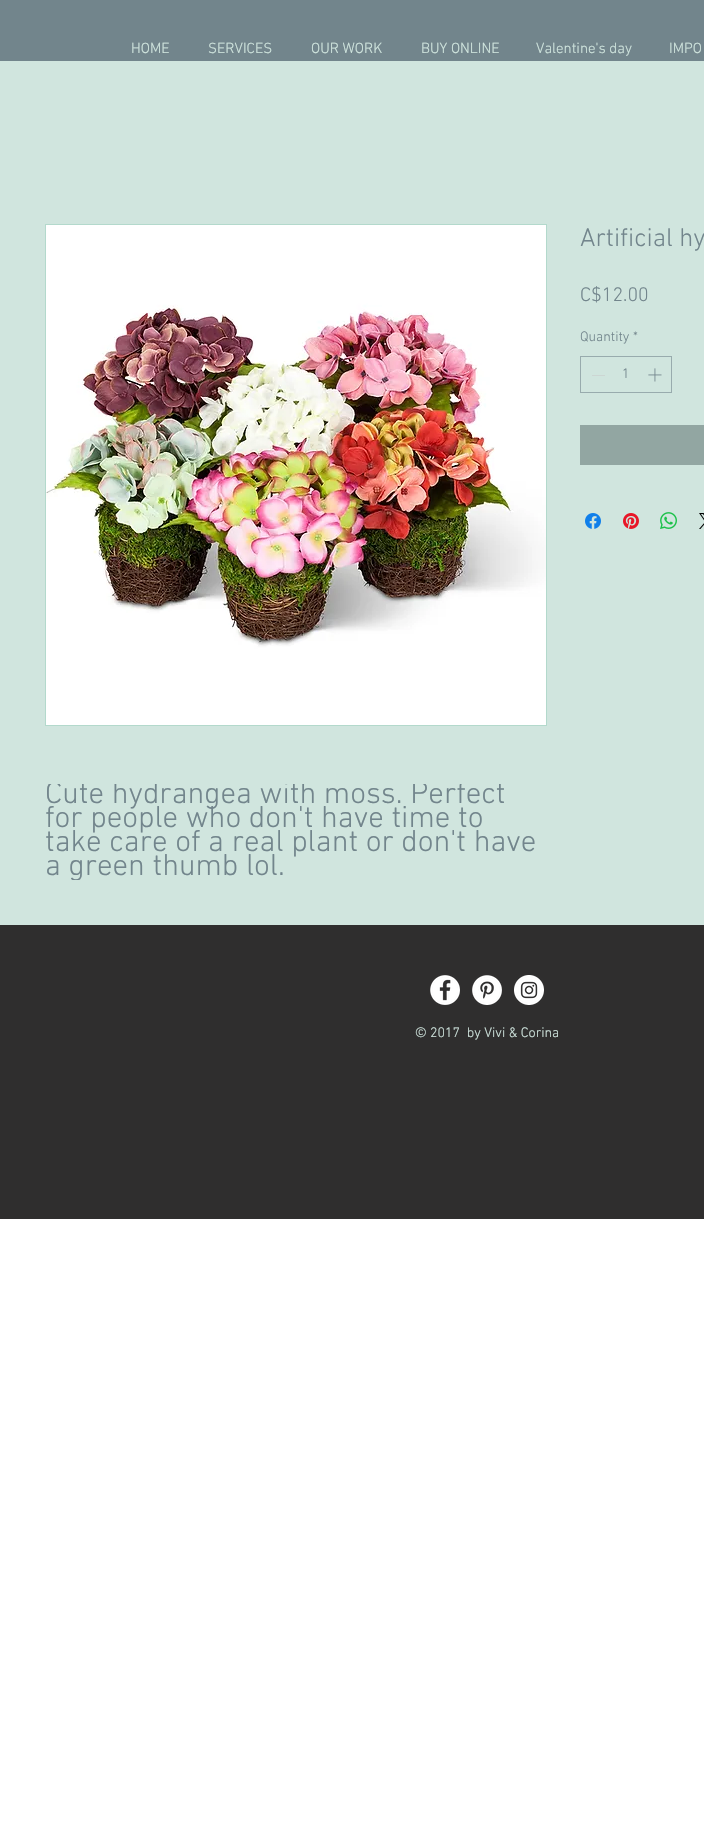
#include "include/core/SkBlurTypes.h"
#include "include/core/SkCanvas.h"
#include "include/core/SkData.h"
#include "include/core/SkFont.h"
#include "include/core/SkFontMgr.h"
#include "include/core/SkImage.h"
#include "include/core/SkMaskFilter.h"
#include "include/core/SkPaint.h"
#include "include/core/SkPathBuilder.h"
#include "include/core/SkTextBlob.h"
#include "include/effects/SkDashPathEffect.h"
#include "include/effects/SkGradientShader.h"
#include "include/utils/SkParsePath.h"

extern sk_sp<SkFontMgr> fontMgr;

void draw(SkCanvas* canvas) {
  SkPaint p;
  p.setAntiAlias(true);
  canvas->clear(SK_ColorWHITE);
  p.setColor(SkColorSetRGB(114, 133, 140));
  canvas->drawRect(SkRect::MakeLTRB(0, 0, 704, 61), p);
  p.setColor(SkColorSetRGB(208, 229, 222));
  canvas->drawRect(SkRect::MakeLTRB(0, 61, 704, 925), p);
  p.setStyle(SkPaint::kStroke_Style);
  p.setStrokeWidth(1);
  p.setColor(SkColorSetRGB(152, 171, 173));
  canvas->drawRect(SkRect::MakeLTRB(580.5f, 356.5f, 671.5f, 392.5f), p);
  p.setStyle(SkPaint::kFill_Style);
  p.setColor(SkColorSetRGB(204, 214, 211));
  canvas->drawRect(SkRect::MakeLTRB(592, 375, 605, 376), p);
  canvas->drawImageRect(SkImages::DeferredFromEncodedData(SkData::MakeFromFileName("images/1.png")), SkRect::MakeLTRB(648, 368, 662, 382), SkSamplingOptions());
  p.setColor(SkColorSetRGB(146, 166, 162));
  canvas->drawRect(SkRect::MakeLTRB(580, 425, 704, 465), p);
  canvas->drawImageRect(SkImages::DeferredFromEncodedData(SkData::MakeFromFileName("images/2.png")), SkRect::MakeLTRB(585, 513, 601, 529), SkSamplingOptions());
  canvas->drawImageRect(SkImages::DeferredFromEncodedData(SkData::MakeFromFileName("images/3.png")), SkRect::MakeLTRB(623, 513, 639, 529), SkSamplingOptions());
  canvas->drawImageRect(SkImages::DeferredFromEncodedData(SkData::MakeFromFileName("images/4.png")), SkRect::MakeLTRB(660, 512, 677, 529), SkSamplingOptions());
  canvas->drawImageRect(SkImages::DeferredFromEncodedData(SkData::MakeFromFileName("images/5.png")), SkRect::MakeLTRB(699, 513, 704, 529), SkSamplingOptions());
  p.setStyle(SkPaint::kStroke_Style);
  p.setColor(SkColorSetRGB(179, 217, 204));
  canvas->drawRect(SkRect::MakeLTRB(45.5f, 224.5f, 546.5f, 725.5f), p);
  canvas->drawImageRect(SkImages::DeferredFromEncodedData(SkData::MakeFromFileName("images/6.png")), SkRect::MakeLTRB(46, 225, 546, 725), SkSamplingOptions());
  p.setStyle(SkPaint::kFill_Style);
  p.setColor(SkColorSetRGB(47, 46, 46));
  canvas->drawRect(SkRect::MakeLTRB(0, 925, 704, 1219), p);
  canvas->drawImageRect(SkImages::DeferredFromEncodedData(SkData::MakeFromFileName("images/7.png")), SkRect::MakeLTRB(430, 975, 460, 1005), SkSamplingOptions());
  canvas->drawImageRect(SkImages::DeferredFromEncodedData(SkData::MakeFromFileName("images/8.png")), SkRect::MakeLTRB(472, 975, 502, 1005), SkSamplingOptions());
  canvas->drawImageRect(SkImages::DeferredFromEncodedData(SkData::MakeFromFileName("images/9.png")), SkRect::MakeLTRB(514, 975, 544, 1005), SkSamplingOptions());
  SkFont font1(fontMgr->matchFamilyStyle("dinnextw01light", SkFontStyle(300, SkFontStyle::kNormal_Width, SkFontStyle::kUpright_Slant)), 15);
  font1.setSubpixel(true);
  p.setColor(SkColorSetRGB(208, 229, 222));
  canvas->drawString("HOME", 131, 53, font1, p);
  canvas->drawString("SERVICES", 208, 53, font1, p);
  canvas->drawString("OUR WORK", 311, 53, font1, p);
  canvas->drawString("BUY ONLINE", 421, 53, font1, p);
  canvas->drawString("Valentine's day", 536, 53, font1, p);
  canvas->drawString("IMPO", 669, 53, font1, p);
  SkFont font2(fontMgr->matchFamilyStyle("dinnextw01light", SkFontStyle(300, SkFontStyle::kNormal_Width, SkFontStyle::kUpright_Slant)), 26);
  font2.setSubpixel(true);
  p.setColor(SkColorSetRGB(114, 133, 140));
  canvas->drawString("Artificial hy", 580, 246, font2, p);
  SkFont font3(fontMgr->matchFamilyStyle("dinnextw01light", SkFontStyle(300, SkFontStyle::kNormal_Width, SkFontStyle::kUpright_Slant)), 20);
  font3.setSubpixel(true);
  canvas->drawString("C$12.00", 580, 301, font3, p);
  SkFont font4(fontMgr->matchFamilyStyle("dinnextw01light", SkFontStyle(300, SkFontStyle::kNormal_Width, SkFontStyle::kUpright_Slant)), 14);
  font4.setSubpixel(true);
  canvas->drawString("Quantity", 580, 341, font4, p);
  canvas->drawString("*", 633, 341, font4, p);
  canvas->drawString("1", 622, 378, font4, p);
  canvas->save();
  canvas->clipRect(SkRect::MakeLTRB(45, 784, 545, 880));
  SkFont font5(fontMgr->matchFamilyStyle("dinnextw01light", SkFontStyle(300, SkFontStyle::kNormal_Width, SkFontStyle::kUpright_Slant)), 31);
  font5.setSubpixel(true);
  canvas->drawString("Cute hydrangea with moss. Perfect", 45, 803, font5, p);
  canvas->restore();
  canvas->drawString("for people who don't have time to", 45, 827, font5, p);
  canvas->drawString("take care of a real plant or don't have", 45, 851, font5, p);
  canvas->save();
  canvas->clipRect(SkRect::MakeLTRB(45, 784, 545, 880));
  canvas->drawString("a green thumb lol.", 45, 875, font5, p);
  canvas->restore();
  p.setColor(SkColorSetRGB(208, 229, 222));
  canvas->drawString("© 2017  by Vivi & Corina", 415, 1037, font4, p);
}
